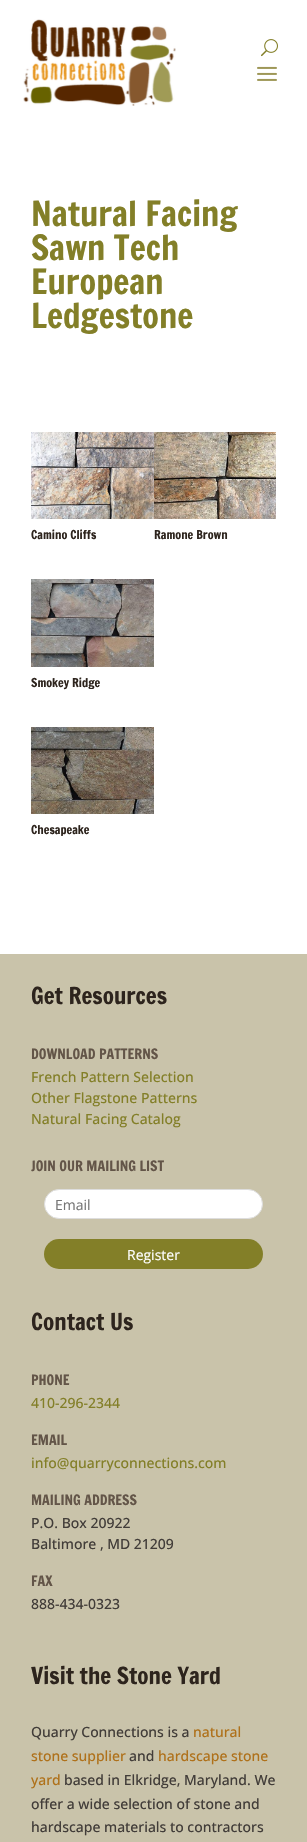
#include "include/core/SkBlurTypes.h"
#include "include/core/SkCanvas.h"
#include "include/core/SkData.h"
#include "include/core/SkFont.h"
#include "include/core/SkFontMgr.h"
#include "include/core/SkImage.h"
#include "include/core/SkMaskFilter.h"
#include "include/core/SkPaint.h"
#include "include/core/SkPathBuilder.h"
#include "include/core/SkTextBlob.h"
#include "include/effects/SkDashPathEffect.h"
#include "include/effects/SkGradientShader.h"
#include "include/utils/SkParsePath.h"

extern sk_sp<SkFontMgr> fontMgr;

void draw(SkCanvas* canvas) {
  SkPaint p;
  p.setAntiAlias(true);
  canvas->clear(SK_ColorWHITE);
  canvas->drawImageRect(SkImages::DeferredFromEncodedData(SkData::MakeFromFileName("images/1.png")), SkRect::MakeLTRB(23, 19, 176, 106), SkSamplingOptions());
  canvas->drawImageRect(SkImages::DeferredFromEncodedData(SkData::MakeFromFileName("images/2.png")), SkRect::MakeLTRB(261, 39, 278, 57), SkSamplingOptions());
  canvas->drawImageRect(SkImages::DeferredFromEncodedData(SkData::MakeFromFileName("images/3.png")), SkRect::MakeLTRB(257, 66, 277, 81), SkSamplingOptions());
  canvas->drawImageRect(SkImages::DeferredFromEncodedData(SkData::MakeFromFileName("images/4.png")), SkRect::MakeLTRB(31, 432, 154, 519), SkSamplingOptions());
  canvas->drawImageRect(SkImages::DeferredFromEncodedData(SkData::MakeFromFileName("images/5.png")), SkRect::MakeLTRB(154, 432, 276, 519), SkSamplingOptions());
  canvas->drawImageRect(SkImages::DeferredFromEncodedData(SkData::MakeFromFileName("images/6.png")), SkRect::MakeLTRB(31, 579, 154, 667), SkSamplingOptions());
  canvas->drawImageRect(SkImages::DeferredFromEncodedData(SkData::MakeFromFileName("images/7.png")), SkRect::MakeLTRB(31, 727, 154, 814), SkSamplingOptions());
  p.setColor(SkColorSetRGB(201, 195, 170));
  canvas->drawRect(SkRect::MakeLTRB(0, 954, 307, 1842), p);
  p.setColor(SK_ColorWHITE);
  canvas->drawRoundRect(SkRect::MakeLTRB(44.5f, 1189.5f, 262.5f, 1218.5f), 14.5f, 14.5f, p);
  p.setStyle(SkPaint::kStroke_Style);
  p.setStrokeWidth(1);
  p.setColor(SkColorSetRGB(221, 221, 221));
  canvas->drawRoundRect(SkRect::MakeLTRB(44.5f, 1189.5f, 262.5f, 1218.5f), 14.5f, 14.5f, p);
  p.setStyle(SkPaint::kFill_Style);
  p.setColor(SkColorSetRGB(131, 127, 40));
  canvas->drawRoundRect(SkRect::MakeLTRB(44, 1239, 263, 1269), 15, 15, p);
  SkFont font1(fontMgr->matchFamilyStyle("Francois One", SkFontStyle::Normal()), 34);
  font1.setSubpixel(true);
  canvas->drawString("Natural Facing", 31, 226, font1, p);
  canvas->drawString("Sawn Tech", 31, 260, font1, p);
  canvas->drawString("European", 31, 294, font1, p);
  canvas->drawString("Ledgestone", 31, 328, font1, p);
  SkFont font2(fontMgr->matchFamilyStyle("Francois One", SkFontStyle::Normal()), 12);
  font2.setSubpixel(true);
  p.setColor(SkColorSetRGB(45, 36, 29));
  canvas->drawString("Camino Cliffs", 31, 539, font2, p);
  canvas->drawString("Ramone Brown", 154, 539, font2, p);
  canvas->drawString("Smokey Ridge", 31, 687, font2, p);
  canvas->drawString("Chesapeake", 31, 834, font2, p);
  SkFont font3(fontMgr->matchFamilyStyle("Francois One", SkFontStyle::Normal()), 23);
  font3.setSubpixel(true);
  canvas->drawString("Get Resources", 31, 1004, font3, p);
  SkFont font4(fontMgr->matchFamilyStyle("Francois One", SkFontStyle::Normal()), 14);
  font4.setSubpixel(true);
  p.setColor(SkColorSetRGB(99, 85, 72));
  canvas->drawString("DOWNLOAD PATTERNS", 31, 1059, font4, p);
  SkFont font5(fontMgr->matchFamilyStyle("Open Sans", SkFontStyle(500, SkFontStyle::kNormal_Width, SkFontStyle::kUpright_Slant)), 14);
  font5.setSubpixel(true);
  p.setColor(SkColorSetRGB(131, 127, 40));
  canvas->drawString("French Pattern Selection", 31, 1082, font5, p);
  canvas->drawString("Other Flagstone Patterns", 31, 1103, font5, p);
  canvas->drawString("Natural Facing Catalog", 31, 1124, font5, p);
  p.setColor(SkColorSetRGB(99, 85, 72));
  canvas->drawString("JOIN OUR MAILING LIST", 31, 1171, font4, p);
  SkFont font6(fontMgr->matchFamilyStyle("Open Sans", SkFontStyle::Normal()), 14);
  font6.setSubpixel(true);
  p.setColor(SkColorSetRGB(117, 117, 117));
  canvas->drawString("Email", 55, 1210, font6, p);
  p.setColor(SK_ColorWHITE);
  canvas->drawString("Register", 127, 1260, font6, p);
  p.setColor(SkColorSetRGB(45, 36, 29));
  canvas->drawString("Contact Us", 31, 1330, font3, p);
  p.setColor(SkColorSetRGB(99, 85, 72));
  canvas->drawString("PHONE", 31, 1385, font4, p);
  p.setColor(SkColorSetRGB(131, 127, 40));
  canvas->drawString("410-296-2344", 31, 1408, font5, p);
  p.setColor(SkColorSetRGB(99, 85, 72));
  canvas->drawString("EMAIL", 31, 1445, font4, p);
  p.setColor(SkColorSetRGB(131, 127, 40));
  canvas->drawString("info@quarryconnections.com", 31, 1468, font5, p);
  p.setColor(SkColorSetRGB(99, 85, 72));
  canvas->drawString("MAILING ADDRESS", 31, 1505, font4, p);
  p.setColor(SkColorSetRGB(66, 61, 57));
  canvas->drawString("P.O. Box 20922", 31, 1528, font5, p);
  canvas->drawString("Baltimore , MD 21209", 31, 1549, font5, p);
  p.setColor(SkColorSetRGB(99, 85, 72));
  canvas->drawString("FAX", 31, 1586, font4, p);
  p.setColor(SkColorSetRGB(66, 61, 57));
  canvas->drawString("888-434-0323", 31, 1609, font5, p);
  p.setColor(SkColorSetRGB(45, 36, 29));
  canvas->drawString("Visit the Stone Yard", 31, 1684, font3, p);
  p.setColor(SkColorSetRGB(66, 61, 57));
  canvas->drawString("Quarry Connections is a", 31, 1737, font5, p);
  p.setColor(SkColorSetRGB(175, 113, 26));
  canvas->drawString("natural", 193, 1737, font5, p);
  canvas->drawString("stone supplier", 31, 1761, font5, p);
  p.setColor(SkColorSetRGB(66, 61, 57));
  canvas->drawString("and", 129, 1761, font5, p);
  p.setColor(SkColorSetRGB(175, 113, 26));
  canvas->drawString("hardscape stone", 158, 1761, font5, p);
  canvas->drawString("yard", 31, 1785, font5, p);
  p.setColor(SkColorSetRGB(66, 61, 57));
  canvas->drawString("based in Elkridge, Maryland. We", 64, 1785, font5, p);
  canvas->drawString("offer a wide selection of stone and", 31, 1809, font5, p);
  canvas->drawString("hardscape materials to contractors", 31, 1832, font5, p);
}
